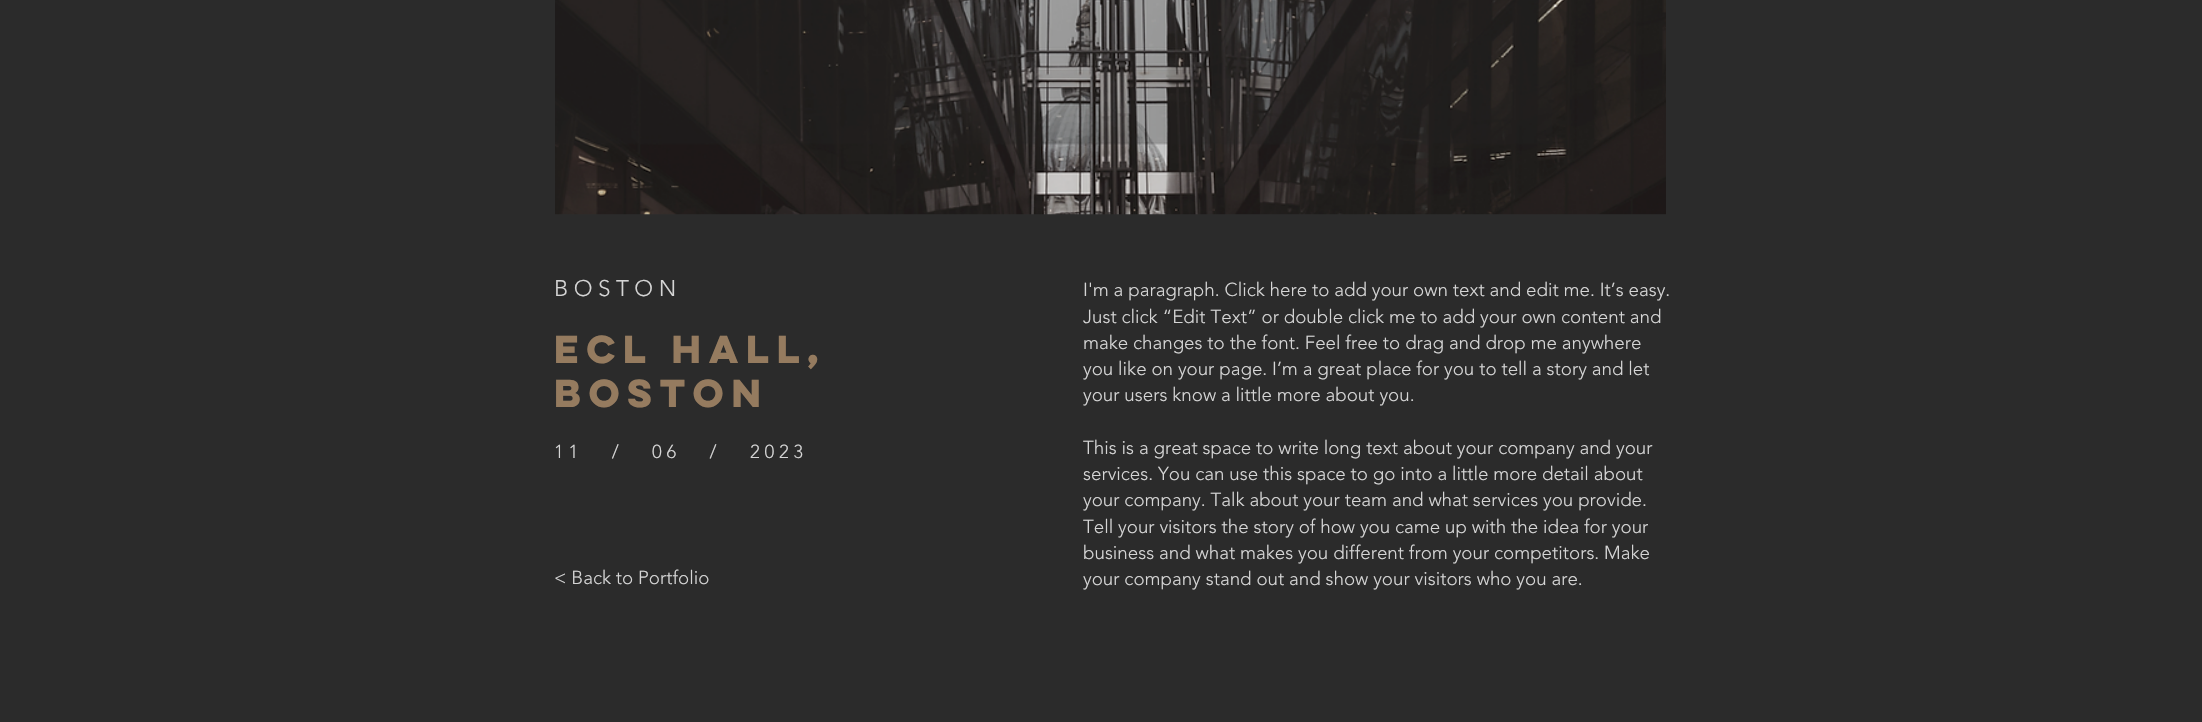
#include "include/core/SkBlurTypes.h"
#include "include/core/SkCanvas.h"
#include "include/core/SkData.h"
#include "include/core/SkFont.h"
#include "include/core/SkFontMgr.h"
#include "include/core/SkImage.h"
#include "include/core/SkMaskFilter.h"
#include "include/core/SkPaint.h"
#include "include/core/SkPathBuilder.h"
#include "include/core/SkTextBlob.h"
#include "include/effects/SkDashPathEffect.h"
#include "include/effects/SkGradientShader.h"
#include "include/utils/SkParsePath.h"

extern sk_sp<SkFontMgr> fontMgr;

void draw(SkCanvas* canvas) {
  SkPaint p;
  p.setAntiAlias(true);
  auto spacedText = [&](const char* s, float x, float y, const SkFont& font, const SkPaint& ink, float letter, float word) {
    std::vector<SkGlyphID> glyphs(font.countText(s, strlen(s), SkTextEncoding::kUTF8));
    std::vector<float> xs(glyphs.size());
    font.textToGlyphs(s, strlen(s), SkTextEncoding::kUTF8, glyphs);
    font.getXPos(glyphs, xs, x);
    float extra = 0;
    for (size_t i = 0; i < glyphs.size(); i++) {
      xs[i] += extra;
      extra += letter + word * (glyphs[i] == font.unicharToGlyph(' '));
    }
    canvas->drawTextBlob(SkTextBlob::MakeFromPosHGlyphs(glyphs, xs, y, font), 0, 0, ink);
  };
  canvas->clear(SkColorSetRGB(43, 43, 43));
  canvas->drawImageRect(SkImages::DeferredFromEncodedData(SkData::MakeFromFileName("images/1.png")), SkRect::MakeLTRB(555, 0, 1666, 215), SkSamplingOptions());
  SkFont font1(fontMgr->matchFamilyStyle("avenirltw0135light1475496", SkFontStyle(300, SkFontStyle::kNormal_Width, SkFontStyle::kUpright_Slant)), 22.5f);
  font1.setSubpixel(true);
  p.setColor(SkColorSetRGB(213, 213, 213));
  spacedText("BOSTON", 554, 296, font1, p, 5.5f, 0);
  SkFont font2(fontMgr->matchFamilyStyle("avenirltw0135light1475496", SkFontStyle(300, SkFontStyle::kNormal_Width, SkFontStyle::kUpright_Slant)), 18.75f);
  font2.setSubpixel(true);
  canvas->drawString("I'm a paragraph. Click here to add your own text and edit me. It’s easy.", 1083, 296, font2, p);
  canvas->drawString("Just click “Edit Text” or double click me to add your own content and", 1083, 323, font2, p);
  canvas->drawString("make changes to the font. Feel free to drag and drop me anywhere", 1083, 349, font2, p);
  canvas->drawString("you like on your page. I’m a great place for you to tell a story and let", 1083, 375, font2, p);
  canvas->drawString("your users know a little more about you.", 1083, 401, font2, p);
  canvas->drawString("This is a great space to write long text about your company and your", 1083, 454, font2, p);
  canvas->drawString("services. You can use this space to go into a little more detail about", 1083, 480, font2, p);
  canvas->drawString("your company. Talk about your team and what services you provide.", 1083, 506, font2, p);
  canvas->drawString("Tell your visitors the story of how you came up with the idea for your", 1083, 533, font2, p);
  canvas->drawString("business and what makes you different from your competitors. Make", 1083, 559, font2, p);
  canvas->drawString("your company stand out and show your visitors who you are.", 1083, 585, font2, p);
  SkFont font3(fontMgr->matchFamilyStyle("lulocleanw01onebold", SkFontStyle::Bold()), 35);
  font3.setSubpixel(true);
  p.setColor(SkColorSetRGB(149, 123, 95));
  canvas->drawString("ECL HALL,", 554, 363, font3, p);
  canvas->drawString("BOSTON", 554, 407, font3, p);
  p.setColor(SkColorSetRGB(213, 213, 213));
  spacedText("11   /   06   /   2023", 554, 458, font2, p, 4.7f, 0);
  canvas->drawString("< Back to Portfolio", 554, 584, font2, p);
}
